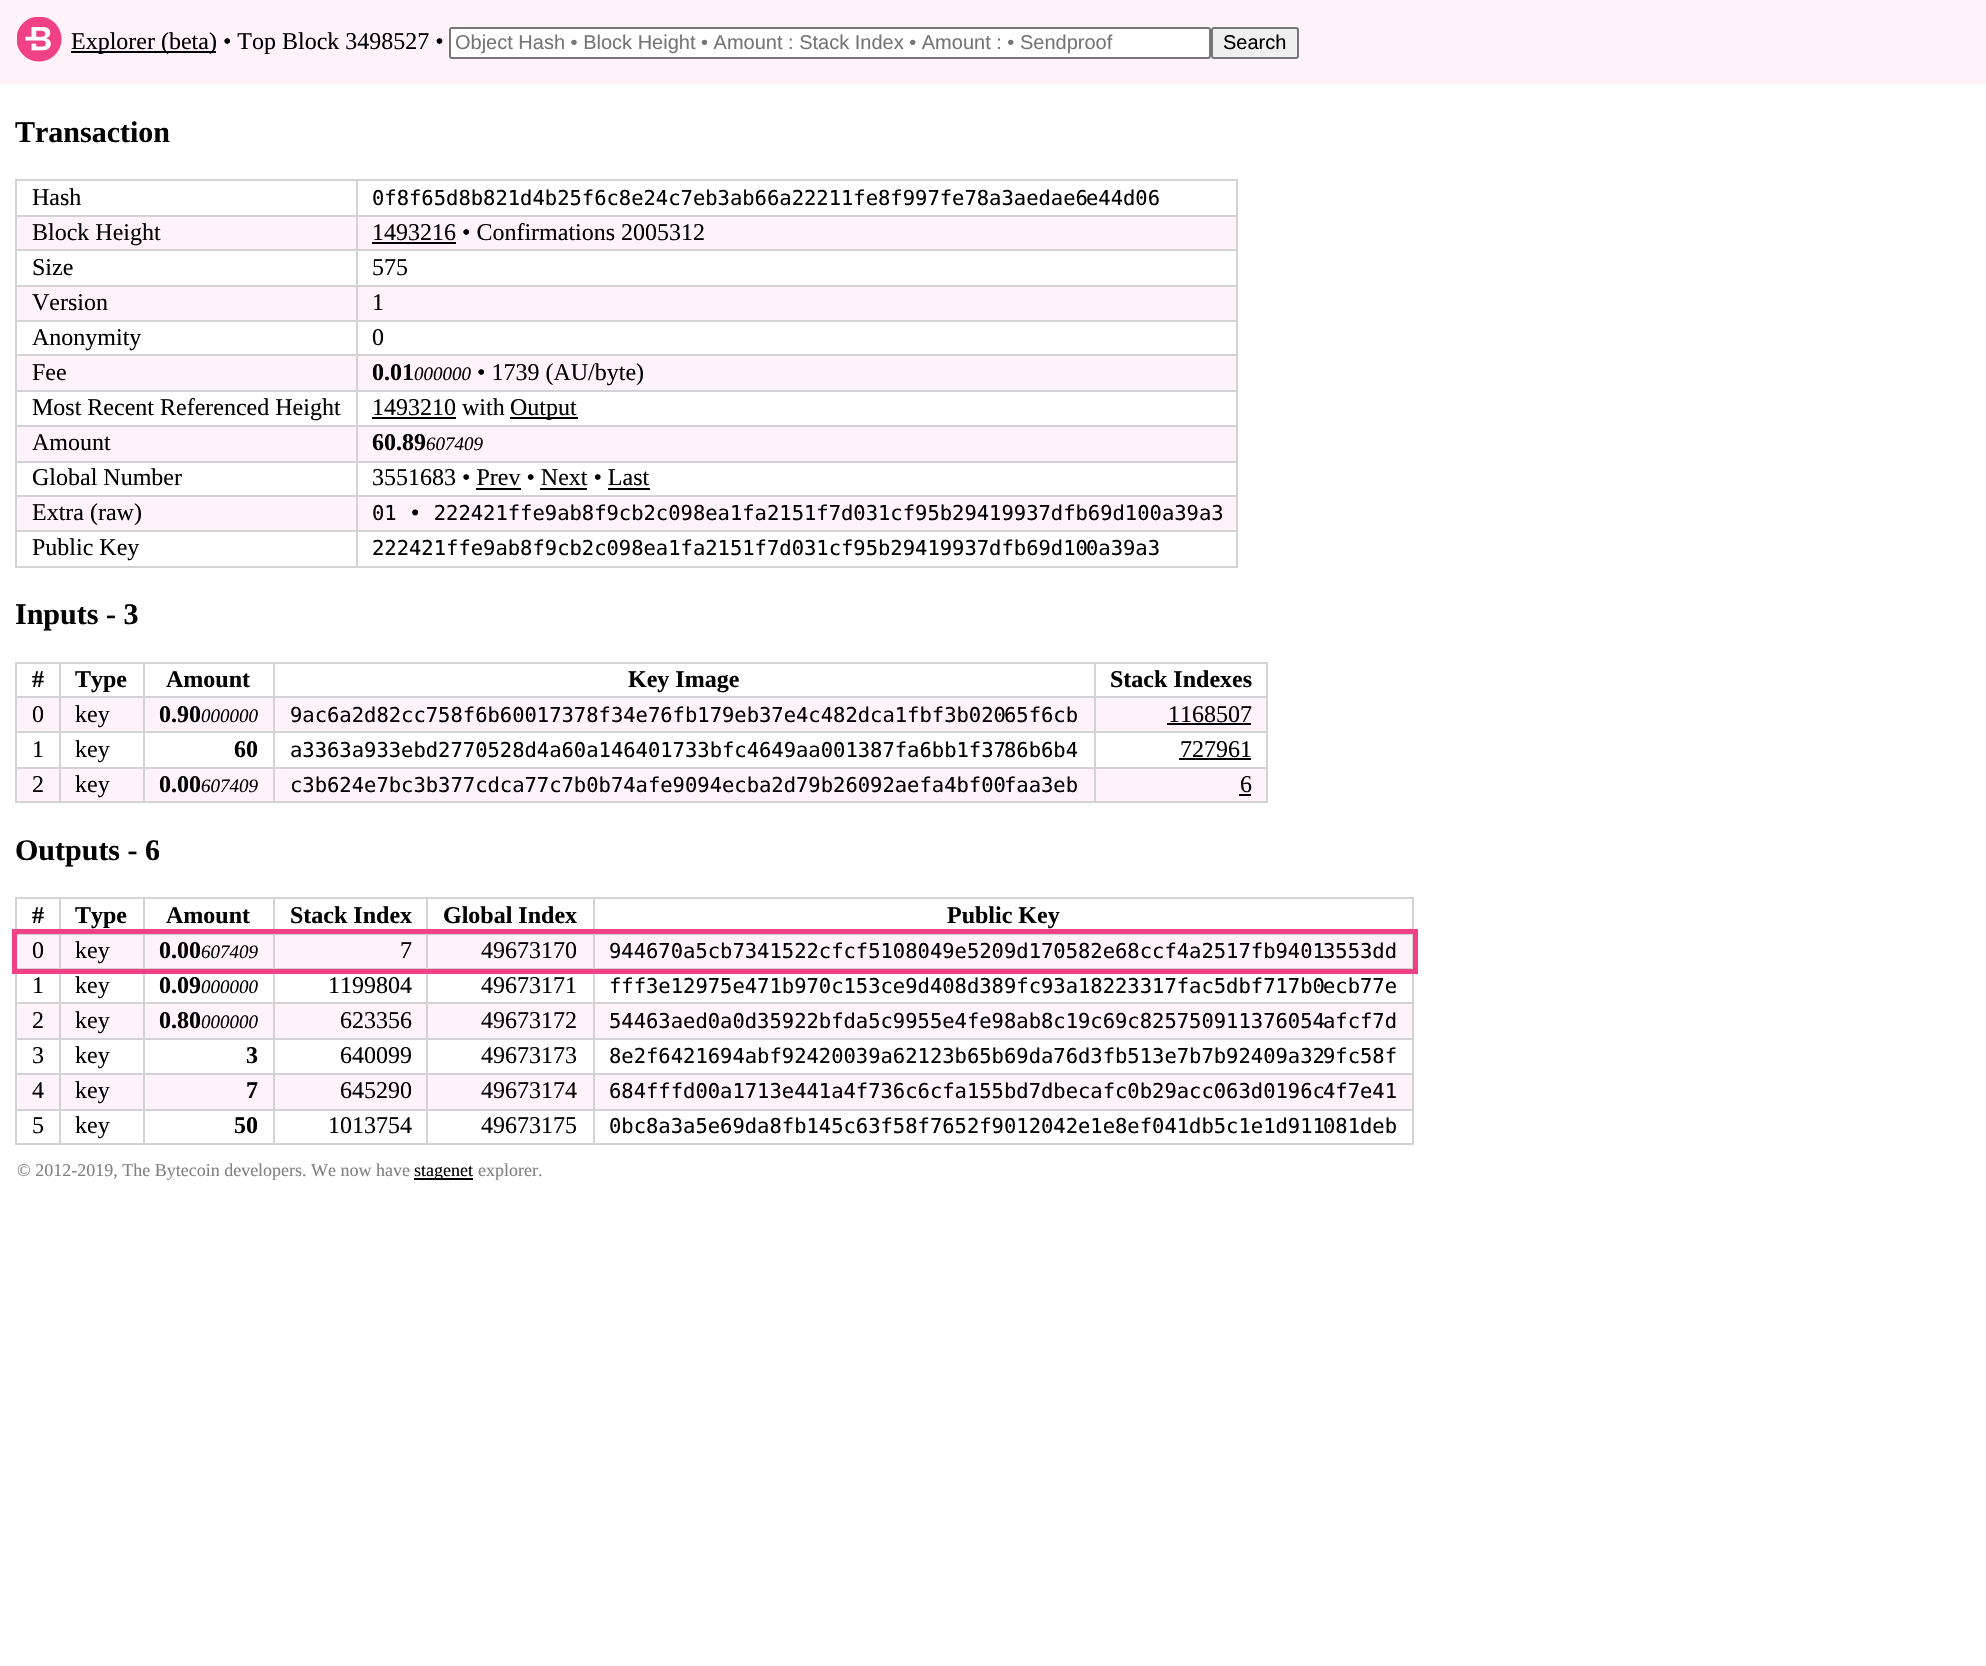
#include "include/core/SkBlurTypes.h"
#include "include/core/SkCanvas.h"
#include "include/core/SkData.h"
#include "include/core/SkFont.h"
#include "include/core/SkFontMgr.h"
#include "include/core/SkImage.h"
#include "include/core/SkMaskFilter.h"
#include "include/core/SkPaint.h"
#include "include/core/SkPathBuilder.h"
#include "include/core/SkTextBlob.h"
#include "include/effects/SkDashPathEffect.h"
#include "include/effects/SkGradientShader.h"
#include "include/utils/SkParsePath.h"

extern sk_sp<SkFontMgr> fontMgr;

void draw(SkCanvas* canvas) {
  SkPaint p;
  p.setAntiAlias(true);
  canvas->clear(SK_ColorWHITE);
  p.setColor(SkColorSetRGB(255, 243, 249));
  canvas->drawRect(SkRect::MakeLTRB(0, 0, 1986, 84), p);
  canvas->drawImageRect(SkImages::DeferredFromEncodedData(SkData::MakeFromFileName("images/1.png")), SkRect::MakeLTRB(17, 17, 62, 62), SkSamplingOptions());
  p.setColor(SK_ColorBLACK);
  canvas->drawRect(SkRect::MakeLTRB(71, 51, 216, 53), p);
  p.setColor(SK_ColorWHITE);
  canvas->drawRoundRect(SkRect::MakeLTRB(450, 28, 1210, 58), 2, 2, p);
  p.setStyle(SkPaint::kStroke_Style);
  p.setStrokeWidth(2);
  p.setColor(SkColorSetRGB(118, 118, 118));
  canvas->drawRoundRect(SkRect::MakeLTRB(450, 28, 1210, 58), 2, 2, p);
  p.setStyle(SkPaint::kFill_Style);
  p.setColor(SkColorSetRGB(239, 239, 239));
  canvas->drawRoundRect(SkRect::MakeLTRB(1212, 28, 1298, 58), 2, 2, p);
  p.setStyle(SkPaint::kStroke_Style);
  p.setColor(SkColorSetRGB(118, 118, 118));
  canvas->drawRoundRect(SkRect::MakeLTRB(1212, 28, 1298, 58), 2, 2, p);
  p.setStyle(SkPaint::kFill_Style);
  p.setColor(SkColorSetRGB(211, 211, 211));
  canvas->drawRect(SkRect::MakeLTRB(356, 179, 1238, 181), p);
  canvas->drawRect(SkRect::MakeLTRB(356, 215, 1238, 217), p);
  p.setColor(SkColorSetRGB(255, 243, 249));
  canvas->drawRect(SkRect::MakeLTRB(17, 217, 1236, 249), p);
  p.setColor(SkColorSetRGB(211, 211, 211));
  canvas->drawRect(SkRect::MakeLTRB(356, 249, 1238, 251), p);
  canvas->drawRect(SkRect::MakeLTRB(356, 285, 1238, 287), p);
  p.setColor(SkColorSetRGB(255, 243, 249));
  canvas->drawRect(SkRect::MakeLTRB(17, 287, 1236, 320), p);
  p.setColor(SkColorSetRGB(211, 211, 211));
  canvas->drawRect(SkRect::MakeLTRB(356, 320, 1238, 322), p);
  canvas->drawRect(SkRect::MakeLTRB(356, 354, 1238, 356), p);
  p.setColor(SkColorSetRGB(255, 243, 249));
  canvas->drawRect(SkRect::MakeLTRB(17, 356, 1236, 390), p);
  p.setColor(SkColorSetRGB(211, 211, 211));
  canvas->drawRect(SkRect::MakeLTRB(356, 390, 1238, 392), p);
  canvas->drawRect(SkRect::MakeLTRB(356, 425, 1238, 427), p);
  p.setColor(SkColorSetRGB(255, 243, 249));
  canvas->drawRect(SkRect::MakeLTRB(17, 427, 1236, 461), p);
  p.setColor(SkColorSetRGB(211, 211, 211));
  canvas->drawRect(SkRect::MakeLTRB(356, 461, 1238, 463), p);
  canvas->drawRect(SkRect::MakeLTRB(356, 495, 1238, 497), p);
  p.setColor(SkColorSetRGB(255, 243, 249));
  canvas->drawRect(SkRect::MakeLTRB(17, 497, 1236, 530), p);
  p.setColor(SkColorSetRGB(211, 211, 211));
  canvas->drawRect(SkRect::MakeLTRB(356, 530, 1238, 532), p);
  canvas->drawRect(SkRect::MakeLTRB(1236, 530, 1238, 567), p);
  canvas->drawRect(SkRect::MakeLTRB(356, 566, 1238, 568), p);
  canvas->drawRect(SkRect::MakeLTRB(356, 530, 358, 567), p);
  canvas->drawRect(SkRect::MakeLTRB(15, 530, 357, 532), p);
  canvas->drawRect(SkRect::MakeLTRB(356, 495, 358, 531), p);
  canvas->drawRect(SkRect::MakeLTRB(15, 495, 357, 497), p);
  canvas->drawRect(SkRect::MakeLTRB(356, 461, 358, 497), p);
  canvas->drawRect(SkRect::MakeLTRB(15, 461, 357, 463), p);
  canvas->drawRect(SkRect::MakeLTRB(356, 425, 358, 462), p);
  canvas->drawRect(SkRect::MakeLTRB(15, 425, 357, 427), p);
  canvas->drawRect(SkRect::MakeLTRB(356, 390, 358, 426), p);
  canvas->drawRect(SkRect::MakeLTRB(15, 390, 357, 392), p);
  canvas->drawRect(SkRect::MakeLTRB(356, 354, 358, 392), p);
  canvas->drawRect(SkRect::MakeLTRB(15, 354, 357, 356), p);
  canvas->drawRect(SkRect::MakeLTRB(356, 320, 358, 356), p);
  canvas->drawRect(SkRect::MakeLTRB(15, 320, 357, 322), p);
  canvas->drawRect(SkRect::MakeLTRB(356, 285, 358, 321), p);
  canvas->drawRect(SkRect::MakeLTRB(15, 285, 357, 287), p);
  canvas->drawRect(SkRect::MakeLTRB(356, 249, 358, 287), p);
  canvas->drawRect(SkRect::MakeLTRB(15, 249, 357, 251), p);
  canvas->drawRect(SkRect::MakeLTRB(356, 215, 358, 251), p);
  canvas->drawRect(SkRect::MakeLTRB(15, 215, 357, 217), p);
  canvas->drawRect(SkRect::MakeLTRB(356, 179, 358, 216), p);
  canvas->drawRect(SkRect::MakeLTRB(15, 179, 357, 181), p);
  canvas->drawRect(SkRect::MakeLTRB(15, 566, 357, 568), p);
  canvas->drawRect(SkRect::MakeLTRB(15, 530, 17, 567), p);
  canvas->drawRect(SkRect::MakeLTRB(15, 495, 17, 531), p);
  canvas->drawRect(SkRect::MakeLTRB(15, 461, 17, 497), p);
  canvas->drawRect(SkRect::MakeLTRB(15, 425, 17, 462), p);
  canvas->drawRect(SkRect::MakeLTRB(15, 390, 17, 426), p);
  canvas->drawRect(SkRect::MakeLTRB(15, 354, 17, 392), p);
  canvas->drawRect(SkRect::MakeLTRB(15, 320, 17, 356), p);
  canvas->drawRect(SkRect::MakeLTRB(15, 285, 17, 321), p);
  canvas->drawRect(SkRect::MakeLTRB(15, 249, 17, 287), p);
  canvas->drawRect(SkRect::MakeLTRB(15, 215, 17, 251), p);
  canvas->drawRect(SkRect::MakeLTRB(15, 179, 17, 216), p);
  canvas->drawRect(SkRect::MakeLTRB(1236, 495, 1238, 531), p);
  canvas->drawRect(SkRect::MakeLTRB(1236, 461, 1238, 497), p);
  canvas->drawRect(SkRect::MakeLTRB(1236, 425, 1238, 462), p);
  canvas->drawRect(SkRect::MakeLTRB(1236, 390, 1238, 426), p);
  canvas->drawRect(SkRect::MakeLTRB(1236, 354, 1238, 392), p);
  canvas->drawRect(SkRect::MakeLTRB(1236, 320, 1238, 356), p);
  canvas->drawRect(SkRect::MakeLTRB(1236, 285, 1238, 321), p);
  canvas->drawRect(SkRect::MakeLTRB(1236, 249, 1238, 287), p);
  canvas->drawRect(SkRect::MakeLTRB(1236, 215, 1238, 251), p);
  canvas->drawRect(SkRect::MakeLTRB(1236, 179, 1238, 216), p);
  p.setColor(SK_ColorBLACK);
  canvas->drawRect(SkRect::MakeLTRB(372, 242, 456, 244), p);
  canvas->drawRect(SkRect::MakeLTRB(372, 417, 456, 419), p);
  canvas->drawRect(SkRect::MakeLTRB(510, 417, 578, 419), p);
  canvas->drawRect(SkRect::MakeLTRB(476, 488, 521, 490), p);
  canvas->drawRect(SkRect::MakeLTRB(540, 488, 587, 490), p);
  canvas->drawRect(SkRect::MakeLTRB(608, 488, 650, 490), p);
  p.setColor(SkColorSetRGB(211, 211, 211));
  canvas->drawRect(SkRect::MakeLTRB(1094, 662, 1268, 664), p);
  canvas->drawRect(SkRect::MakeLTRB(1094, 696, 1268, 698), p);
  p.setColor(SkColorSetRGB(255, 243, 249));
  canvas->drawRect(SkRect::MakeLTRB(17, 698, 1266, 731), p);
  p.setColor(SkColorSetRGB(211, 211, 211));
  canvas->drawRect(SkRect::MakeLTRB(1094, 731, 1268, 733), p);
  canvas->drawRect(SkRect::MakeLTRB(1094, 767, 1268, 769), p);
  p.setColor(SkColorSetRGB(255, 243, 249));
  canvas->drawRect(SkRect::MakeLTRB(17, 769, 1266, 801), p);
  p.setColor(SkColorSetRGB(211, 211, 211));
  canvas->drawRect(SkRect::MakeLTRB(1266, 767, 1268, 803), p);
  canvas->drawRect(SkRect::MakeLTRB(1094, 801, 1268, 803), p);
  canvas->drawRect(SkRect::MakeLTRB(1094, 767, 1096, 803), p);
  canvas->drawRect(SkRect::MakeLTRB(273, 767, 1095, 769), p);
  canvas->drawRect(SkRect::MakeLTRB(1094, 731, 1096, 768), p);
  canvas->drawRect(SkRect::MakeLTRB(273, 731, 1095, 733), p);
  canvas->drawRect(SkRect::MakeLTRB(1094, 696, 1096, 732), p);
  canvas->drawRect(SkRect::MakeLTRB(273, 696, 1095, 698), p);
  canvas->drawRect(SkRect::MakeLTRB(1094, 662, 1096, 698), p);
  canvas->drawRect(SkRect::MakeLTRB(273, 662, 1095, 664), p);
  canvas->drawRect(SkRect::MakeLTRB(273, 801, 1095, 803), p);
  canvas->drawRect(SkRect::MakeLTRB(273, 767, 275, 803), p);
  canvas->drawRect(SkRect::MakeLTRB(143, 767, 275, 769), p);
  canvas->drawRect(SkRect::MakeLTRB(273, 731, 275, 768), p);
  canvas->drawRect(SkRect::MakeLTRB(143, 731, 275, 733), p);
  canvas->drawRect(SkRect::MakeLTRB(273, 696, 275, 732), p);
  canvas->drawRect(SkRect::MakeLTRB(143, 696, 275, 698), p);
  canvas->drawRect(SkRect::MakeLTRB(273, 662, 275, 698), p);
  canvas->drawRect(SkRect::MakeLTRB(143, 662, 275, 664), p);
  canvas->drawRect(SkRect::MakeLTRB(143, 801, 275, 803), p);
  canvas->drawRect(SkRect::MakeLTRB(143, 767, 145, 803), p);
  canvas->drawRect(SkRect::MakeLTRB(59, 767, 144, 769), p);
  canvas->drawRect(SkRect::MakeLTRB(143, 731, 145, 768), p);
  canvas->drawRect(SkRect::MakeLTRB(59, 731, 144, 733), p);
  canvas->drawRect(SkRect::MakeLTRB(143, 696, 145, 732), p);
  canvas->drawRect(SkRect::MakeLTRB(59, 696, 144, 698), p);
  canvas->drawRect(SkRect::MakeLTRB(143, 662, 145, 698), p);
  canvas->drawRect(SkRect::MakeLTRB(59, 662, 144, 664), p);
  canvas->drawRect(SkRect::MakeLTRB(59, 801, 144, 803), p);
  canvas->drawRect(SkRect::MakeLTRB(59, 767, 61, 803), p);
  canvas->drawRect(SkRect::MakeLTRB(15, 767, 60, 769), p);
  canvas->drawRect(SkRect::MakeLTRB(59, 731, 61, 768), p);
  canvas->drawRect(SkRect::MakeLTRB(15, 731, 60, 733), p);
  canvas->drawRect(SkRect::MakeLTRB(59, 696, 61, 732), p);
  canvas->drawRect(SkRect::MakeLTRB(15, 696, 60, 698), p);
  canvas->drawRect(SkRect::MakeLTRB(59, 662, 61, 698), p);
  canvas->drawRect(SkRect::MakeLTRB(15, 662, 60, 664), p);
  canvas->drawRect(SkRect::MakeLTRB(15, 801, 60, 803), p);
  canvas->drawRect(SkRect::MakeLTRB(15, 767, 17, 803), p);
  canvas->drawRect(SkRect::MakeLTRB(15, 731, 17, 768), p);
  canvas->drawRect(SkRect::MakeLTRB(15, 696, 17, 732), p);
  canvas->drawRect(SkRect::MakeLTRB(15, 662, 17, 698), p);
  canvas->drawRect(SkRect::MakeLTRB(1266, 731, 1268, 768), p);
  canvas->drawRect(SkRect::MakeLTRB(1266, 696, 1268, 732), p);
  canvas->drawRect(SkRect::MakeLTRB(1266, 662, 1268, 698), p);
  p.setColor(SK_ColorBLACK);
  canvas->drawRect(SkRect::MakeLTRB(1167, 723, 1251, 725), p);
  canvas->drawRect(SkRect::MakeLTRB(1179, 758, 1251, 760), p);
  canvas->drawRect(SkRect::MakeLTRB(1239, 794, 1251, 796), p);
  p.setColor(SkColorSetRGB(211, 211, 211));
  canvas->drawRect(SkRect::MakeLTRB(593, 897, 1413, 899), p);
  canvas->drawRect(SkRect::MakeLTRB(593, 934, 1413, 935), p);
  p.setColor(SkColorSetRGB(255, 243, 249));
  canvas->drawRect(SkRect::MakeLTRB(17, 935, 1412, 968), p);
  p.setColor(SkColorSetRGB(211, 211, 211));
  canvas->drawRect(SkRect::MakeLTRB(593, 968, 1413, 969), p);
  canvas->drawRect(SkRect::MakeLTRB(593, 1002, 1413, 1004), p);
  p.setColor(SkColorSetRGB(255, 243, 249));
  canvas->drawRect(SkRect::MakeLTRB(17, 1004, 1412, 1038), p);
  p.setColor(SkColorSetRGB(211, 211, 211));
  canvas->drawRect(SkRect::MakeLTRB(593, 1038, 1413, 1040), p);
  canvas->drawRect(SkRect::MakeLTRB(593, 1073, 1413, 1075), p);
  p.setColor(SkColorSetRGB(255, 243, 249));
  canvas->drawRect(SkRect::MakeLTRB(17, 1075, 1412, 1109), p);
  p.setColor(SkColorSetRGB(211, 211, 211));
  canvas->drawRect(SkRect::MakeLTRB(593, 1109, 1413, 1111), p);
  canvas->drawRect(SkRect::MakeLTRB(1412, 1109, 1414, 1145), p);
  canvas->drawRect(SkRect::MakeLTRB(593, 1143, 1413, 1145), p);
  canvas->drawRect(SkRect::MakeLTRB(593, 1109, 595, 1145), p);
  canvas->drawRect(SkRect::MakeLTRB(426, 1109, 594, 1111), p);
  canvas->drawRect(SkRect::MakeLTRB(593, 1073, 595, 1110), p);
  canvas->drawRect(SkRect::MakeLTRB(426, 1073, 594, 1075), p);
  canvas->drawRect(SkRect::MakeLTRB(593, 1038, 595, 1074), p);
  canvas->drawRect(SkRect::MakeLTRB(426, 1038, 594, 1040), p);
  canvas->drawRect(SkRect::MakeLTRB(593, 1002, 595, 1040), p);
  canvas->drawRect(SkRect::MakeLTRB(426, 1002, 594, 1004), p);
  canvas->drawRect(SkRect::MakeLTRB(593, 968, 595, 1004), p);
  canvas->drawRect(SkRect::MakeLTRB(426, 968, 594, 969), p);
  canvas->drawRect(SkRect::MakeLTRB(593, 933, 595, 969), p);
  canvas->drawRect(SkRect::MakeLTRB(426, 934, 594, 935), p);
  canvas->drawRect(SkRect::MakeLTRB(593, 897, 595, 935), p);
  canvas->drawRect(SkRect::MakeLTRB(426, 897, 594, 899), p);
  canvas->drawRect(SkRect::MakeLTRB(426, 1143, 594, 1145), p);
  canvas->drawRect(SkRect::MakeLTRB(426, 1109, 428, 1145), p);
  canvas->drawRect(SkRect::MakeLTRB(273, 1109, 428, 1111), p);
  canvas->drawRect(SkRect::MakeLTRB(426, 1073, 428, 1110), p);
  canvas->drawRect(SkRect::MakeLTRB(273, 1073, 428, 1075), p);
  canvas->drawRect(SkRect::MakeLTRB(426, 1038, 428, 1074), p);
  canvas->drawRect(SkRect::MakeLTRB(273, 1038, 428, 1040), p);
  canvas->drawRect(SkRect::MakeLTRB(426, 1002, 428, 1040), p);
  canvas->drawRect(SkRect::MakeLTRB(273, 1002, 428, 1004), p);
  canvas->drawRect(SkRect::MakeLTRB(426, 968, 428, 1004), p);
  canvas->drawRect(SkRect::MakeLTRB(273, 968, 428, 969), p);
  canvas->drawRect(SkRect::MakeLTRB(426, 933, 428, 969), p);
  canvas->drawRect(SkRect::MakeLTRB(273, 934, 428, 935), p);
  canvas->drawRect(SkRect::MakeLTRB(426, 897, 428, 935), p);
  canvas->drawRect(SkRect::MakeLTRB(273, 897, 428, 899), p);
  canvas->drawRect(SkRect::MakeLTRB(273, 1143, 428, 1145), p);
  canvas->drawRect(SkRect::MakeLTRB(273, 1109, 275, 1145), p);
  canvas->drawRect(SkRect::MakeLTRB(143, 1109, 275, 1111), p);
  canvas->drawRect(SkRect::MakeLTRB(273, 1073, 275, 1110), p);
  canvas->drawRect(SkRect::MakeLTRB(143, 1073, 275, 1075), p);
  canvas->drawRect(SkRect::MakeLTRB(273, 1038, 275, 1074), p);
  canvas->drawRect(SkRect::MakeLTRB(143, 1038, 275, 1040), p);
  canvas->drawRect(SkRect::MakeLTRB(273, 1002, 275, 1040), p);
  canvas->drawRect(SkRect::MakeLTRB(143, 1002, 275, 1004), p);
  canvas->drawRect(SkRect::MakeLTRB(273, 968, 275, 1004), p);
  canvas->drawRect(SkRect::MakeLTRB(143, 968, 275, 969), p);
  canvas->drawRect(SkRect::MakeLTRB(273, 933, 275, 969), p);
  canvas->drawRect(SkRect::MakeLTRB(143, 934, 275, 935), p);
  canvas->drawRect(SkRect::MakeLTRB(273, 897, 275, 935), p);
  canvas->drawRect(SkRect::MakeLTRB(143, 897, 275, 899), p);
  canvas->drawRect(SkRect::MakeLTRB(143, 1143, 275, 1145), p);
  canvas->drawRect(SkRect::MakeLTRB(143, 1109, 145, 1145), p);
  canvas->drawRect(SkRect::MakeLTRB(59, 1109, 144, 1111), p);
  canvas->drawRect(SkRect::MakeLTRB(143, 1073, 145, 1110), p);
  canvas->drawRect(SkRect::MakeLTRB(59, 1073, 144, 1075), p);
  canvas->drawRect(SkRect::MakeLTRB(143, 1038, 145, 1074), p);
  canvas->drawRect(SkRect::MakeLTRB(59, 1038, 144, 1040), p);
  canvas->drawRect(SkRect::MakeLTRB(143, 1002, 145, 1040), p);
  canvas->drawRect(SkRect::MakeLTRB(59, 1002, 144, 1004), p);
  canvas->drawRect(SkRect::MakeLTRB(143, 968, 145, 1004), p);
  canvas->drawRect(SkRect::MakeLTRB(59, 968, 144, 969), p);
  canvas->drawRect(SkRect::MakeLTRB(143, 933, 145, 969), p);
  canvas->drawRect(SkRect::MakeLTRB(59, 934, 144, 935), p);
  canvas->drawRect(SkRect::MakeLTRB(143, 897, 145, 935), p);
  canvas->drawRect(SkRect::MakeLTRB(59, 897, 144, 899), p);
  canvas->drawRect(SkRect::MakeLTRB(59, 1143, 144, 1145), p);
  canvas->drawRect(SkRect::MakeLTRB(59, 1109, 61, 1145), p);
  canvas->drawRect(SkRect::MakeLTRB(15, 1109, 60, 1111), p);
  canvas->drawRect(SkRect::MakeLTRB(59, 1073, 61, 1110), p);
  canvas->drawRect(SkRect::MakeLTRB(15, 1073, 60, 1075), p);
  canvas->drawRect(SkRect::MakeLTRB(59, 1038, 61, 1074), p);
  canvas->drawRect(SkRect::MakeLTRB(15, 1038, 60, 1040), p);
  canvas->drawRect(SkRect::MakeLTRB(59, 1002, 61, 1040), p);
  canvas->drawRect(SkRect::MakeLTRB(15, 1002, 60, 1004), p);
  canvas->drawRect(SkRect::MakeLTRB(59, 968, 61, 1004), p);
  canvas->drawRect(SkRect::MakeLTRB(15, 968, 60, 969), p);
  canvas->drawRect(SkRect::MakeLTRB(59, 933, 61, 969), p);
  canvas->drawRect(SkRect::MakeLTRB(15, 934, 60, 935), p);
  canvas->drawRect(SkRect::MakeLTRB(59, 897, 61, 935), p);
  canvas->drawRect(SkRect::MakeLTRB(15, 897, 60, 899), p);
  canvas->drawRect(SkRect::MakeLTRB(15, 897, 17, 935), p);
  canvas->drawRect(SkRect::MakeLTRB(1412, 1073, 1414, 1110), p);
  canvas->drawRect(SkRect::MakeLTRB(1412, 1038, 1414, 1074), p);
  canvas->drawRect(SkRect::MakeLTRB(1412, 1002, 1414, 1040), p);
  canvas->drawRect(SkRect::MakeLTRB(1412, 968, 1414, 1004), p);
  canvas->drawRect(SkRect::MakeLTRB(1412, 933, 1413, 969), p);
  canvas->drawRect(SkRect::MakeLTRB(1412, 897, 1414, 935), p);
  canvas->drawRect(SkRect::MakeLTRB(15, 1143, 60, 1145), p);
  canvas->drawRect(SkRect::MakeLTRB(15, 1109, 17, 1145), p);
  canvas->drawRect(SkRect::MakeLTRB(15, 1073, 17, 1110), p);
  canvas->drawRect(SkRect::MakeLTRB(15, 1038, 17, 1074), p);
  canvas->drawRect(SkRect::MakeLTRB(15, 1002, 17, 1040), p);
  canvas->drawRect(SkRect::MakeLTRB(15, 968, 17, 1004), p);
  p.setStyle(SkPaint::kStroke_Style);
  p.setStrokeWidth(5);
  p.setColor(SkColorSetRGB(240, 64, 134));
  canvas->drawRect(SkRect::MakeLTRB(14.5f, 931.5f, 1415.5f, 971.5f), p);
  p.setStyle(SkPaint::kFill_Style);
  p.setColor(SK_ColorBLACK);
  canvas->drawRect(SkRect::MakeLTRB(414, 1178, 473, 1180), p);
  SkFont font1(fontMgr->matchFamilyStyle("Liberation Serif", SkFontStyle::Normal()), 24);
  font1.setSubpixel(true);
  canvas->drawString("Explorer (beta) • Top Block 3498527 •", 71, 49, font1, p);
  SkFont font2(fontMgr->matchFamilyStyle("Liberation Sans", SkFontStyle::Normal()), 20);
  font2.setSubpixel(true);
  p.setColor(SkColorSetRGB(117, 117, 117));
  canvas->drawString("Object Hash • Block Height • Amount : Stack Index • Amount : • Sendproof", 455, 49, font2, p);
  p.setColor(SK_ColorBLACK);
  canvas->drawString("Search", 1223, 49, font2, p);
  SkFont font3(fontMgr->matchFamilyStyle("Liberation Serif", SkFontStyle::Bold()), 30);
  font3.setSubpixel(true);
  canvas->drawString("Transaction", 15, 142, font3, p);
  canvas->drawString("Hash", 32, 205, font1, p);
  SkFont font4(fontMgr->matchFamilyStyle("DejaVu Sans Mono", SkFontStyle::Normal()), 20.5f);
  font4.setSubpixel(true);
  canvas->drawString("0f8f65d8b821d4b25f6c8e24c7eb3ab66a22211fe8f997fe78a3aedae6", 372, 205, font4, p);
  canvas->drawString("e44d06", 1086, 205, font4, p);
  canvas->drawString("Block Height", 32, 240, font1, p);
  canvas->drawString("1493216 • Confirmations 2005312", 372, 240, font1, p);
  canvas->drawString("Size", 32, 275, font1, p);
  canvas->drawString("575", 372, 275, font1, p);
  canvas->drawString("Version", 32, 310, font1, p);
  canvas->drawString("1", 372, 310, font1, p);
  canvas->drawString("Anonymity", 32, 345, font1, p);
  canvas->drawString("0", 372, 345, font1, p);
  canvas->drawString("Fee", 32, 380, font1, p);
  SkFont font5(fontMgr->matchFamilyStyle("Liberation Serif", SkFontStyle::Bold()), 24);
  font5.setSubpixel(true);
  canvas->drawString("0.01", 372, 380, font5, p);
  SkFont font6(fontMgr->matchFamilyStyle("Liberation Serif", SkFontStyle::Italic()), 19);
  font6.setSubpixel(true);
  canvas->drawString("000000", 414, 380, font6, p);
  canvas->drawString("• 1739 (AU/byte)", 477, 380, font1, p);
  canvas->drawString("Most Recent Referenced Height", 32, 415, font1, p);
  canvas->drawString("1493210 with", 372, 415, font1, p);
  canvas->drawString("Output", 510, 415, font1, p);
  canvas->drawString("Amount", 32, 450, font1, p);
  canvas->drawString("60.89", 372, 450, font5, p);
  canvas->drawString("607409", 426, 450, font6, p);
  canvas->drawString("Global Number", 32, 485, font1, p);
  canvas->drawString("3551683 • Prev • Next • Last", 372, 485, font1, p);
  canvas->drawString("Extra (raw)", 32, 520, font1, p);
  canvas->drawString("01 • 222421ffe9ab8f9cb2c098ea1fa2151f7d031cf95b29419937dfb69d100a39a3", 372, 520, font4, p);
  canvas->drawString("Public Key", 32, 555, font1, p);
  canvas->drawString("222421ffe9ab8f9cb2c098ea1fa2151f7d031cf95b29419937dfb69d10", 372, 555, font4, p);
  canvas->drawString("0a39a3", 1086, 555, font4, p);
  canvas->drawString("Inputs - 3", 15, 624, font3, p);
  canvas->drawString("#", 32, 687, font5, p);
  canvas->drawString("Type", 75, 687, font5, p);
  canvas->drawString("Amount", 166, 687, font5, p);
  canvas->drawString("Key Image", 628, 687, font5, p);
  canvas->drawString("Stack Indexes", 1110, 687, font5, p);
  canvas->drawString("0", 32, 722, font1, p);
  canvas->drawString("key", 75, 722, font1, p);
  canvas->drawString("0.90", 159, 722, font5, p);
  canvas->drawString("000000", 201, 722, font6, p);
  canvas->drawString("9ac6a2d82cc758f6b60017378f34e76fb179eb37e4c482dca1fbf3b020", 290, 722, font4, p);
  canvas->drawString("65f6cb", 1004, 722, font4, p);
  canvas->drawString("1168507", 1168, 722, font1, p);
  canvas->drawString("1", 32, 757, font1, p);
  canvas->drawString("key", 75, 757, font1, p);
  canvas->drawString("60", 234, 757, font5, p);
  canvas->drawString("a3363a933ebd2770528d4a60a146401733bfc4649aa001387fa6bb1f37", 290, 757, font4, p);
  canvas->drawString("86b6b4", 1004, 757, font4, p);
  canvas->drawString("727961", 1180, 757, font1, p);
  canvas->drawString("2", 32, 792, font1, p);
  canvas->drawString("key", 75, 792, font1, p);
  canvas->drawString("0.00", 159, 792, font5, p);
  canvas->drawString("607409", 201, 792, font6, p);
  canvas->drawString("c3b624e7bc3b377cdca77c7b0b74afe9094ecba2d79b26092aefa4bf00", 290, 792, font4, p);
  canvas->drawString("faa3eb", 1004, 792, font4, p);
  canvas->drawString("6", 1240, 792, font1, p);
  canvas->drawString("Outputs - 6", 15, 860, font3, p);
  canvas->drawString("#", 32, 923, font5, p);
  canvas->drawString("Type", 75, 923, font5, p);
  canvas->drawString("Amount", 166, 923, font5, p);
  canvas->drawString("Stack Index", 290, 923, font5, p);
  canvas->drawString("Global Index", 443, 923, font5, p);
  canvas->drawString("Public Key", 947, 923, font5, p);
  canvas->drawString("0", 32, 958, font1, p);
  canvas->drawString("key", 75, 958, font1, p);
  canvas->drawString("0.00", 159, 958, font5, p);
  canvas->drawString("607409", 201, 958, font6, p);
  canvas->drawString("7", 400, 958, font1, p);
  canvas->drawString("49673170", 481, 958, font1, p);
  canvas->drawString("944670a5cb7341522cfcf5108049e5209d170582e68ccf4a2517fb9401", 609, 958, font4, p);
  canvas->drawString("3553dd", 1323, 958, font4, p);
  canvas->drawString("1", 32, 993, font1, p);
  canvas->drawString("key", 75, 993, font1, p);
  canvas->drawString("0.09", 159, 993, font5, p);
  canvas->drawString("000000", 201, 993, font6, p);
  canvas->drawString("1199804", 328, 993, font1, p);
  canvas->drawString("49673171", 481, 993, font1, p);
  canvas->drawString("fff3e12975e471b970c153ce9d408d389fc93a18223317fac5dbf717b0", 609, 993, font4, p);
  canvas->drawString("ecb77e", 1323, 993, font4, p);
  canvas->drawString("2", 32, 1028, font1, p);
  canvas->drawString("key", 75, 1028, font1, p);
  canvas->drawString("0.80", 159, 1028, font5, p);
  canvas->drawString("000000", 201, 1028, font6, p);
  canvas->drawString("623356", 340, 1028, font1, p);
  canvas->drawString("49673172", 481, 1028, font1, p);
  canvas->drawString("54463aed0a0d35922bfda5c9955e4fe98ab8c19c69c825750911376054", 609, 1028, font4, p);
  canvas->drawString("afcf7d", 1323, 1028, font4, p);
  canvas->drawString("3", 32, 1063, font1, p);
  canvas->drawString("key", 75, 1063, font1, p);
  canvas->drawString("3", 246, 1063, font5, p);
  canvas->drawString("640099", 340, 1063, font1, p);
  canvas->drawString("49673173", 481, 1063, font1, p);
  canvas->drawString("8e2f6421694abf92420039a62123b65b69da76d3fb513e7b7b92409a32", 609, 1063, font4, p);
  canvas->drawString("9fc58f", 1323, 1063, font4, p);
  canvas->drawString("4", 32, 1098, font1, p);
  canvas->drawString("key", 75, 1098, font1, p);
  canvas->drawString("7", 246, 1098, font5, p);
  canvas->drawString("645290", 340, 1098, font1, p);
  canvas->drawString("49673174", 481, 1098, font1, p);
  canvas->drawString("684fffd00a1713e441a4f736c6cfa155bd7dbecafc0b29acc063d0196c", 609, 1098, font4, p);
  canvas->drawString("4f7e41", 1323, 1098, font4, p);
  canvas->drawString("5", 32, 1133, font1, p);
  canvas->drawString("key", 75, 1133, font1, p);
  canvas->drawString("50", 234, 1133, font5, p);
  canvas->drawString("1013754", 328, 1133, font1, p);
  canvas->drawString("49673175", 481, 1133, font1, p);
  canvas->drawString("0bc8a3a5e69da8fb145c63f58f7652f9012042e1e8ef041db5c1e1d911", 609, 1133, font4, p);
  canvas->drawString("081deb", 1323, 1133, font4, p);
  SkFont font7(fontMgr->matchFamilyStyle("Liberation Serif", SkFontStyle::Normal()), 18);
  font7.setSubpixel(true);
  p.setColor(SkColorSetRGB(128, 128, 128));
  canvas->drawString("© 2012-2019, The Bytecoin developers. We now have", 17, 1176, font7, p);
  p.setColor(SK_ColorBLACK);
  canvas->drawString("stagenet", 414, 1176, font7, p);
  p.setColor(SkColorSetRGB(128, 128, 128));
  canvas->drawString("explorer.", 478, 1176, font7, p);
}
